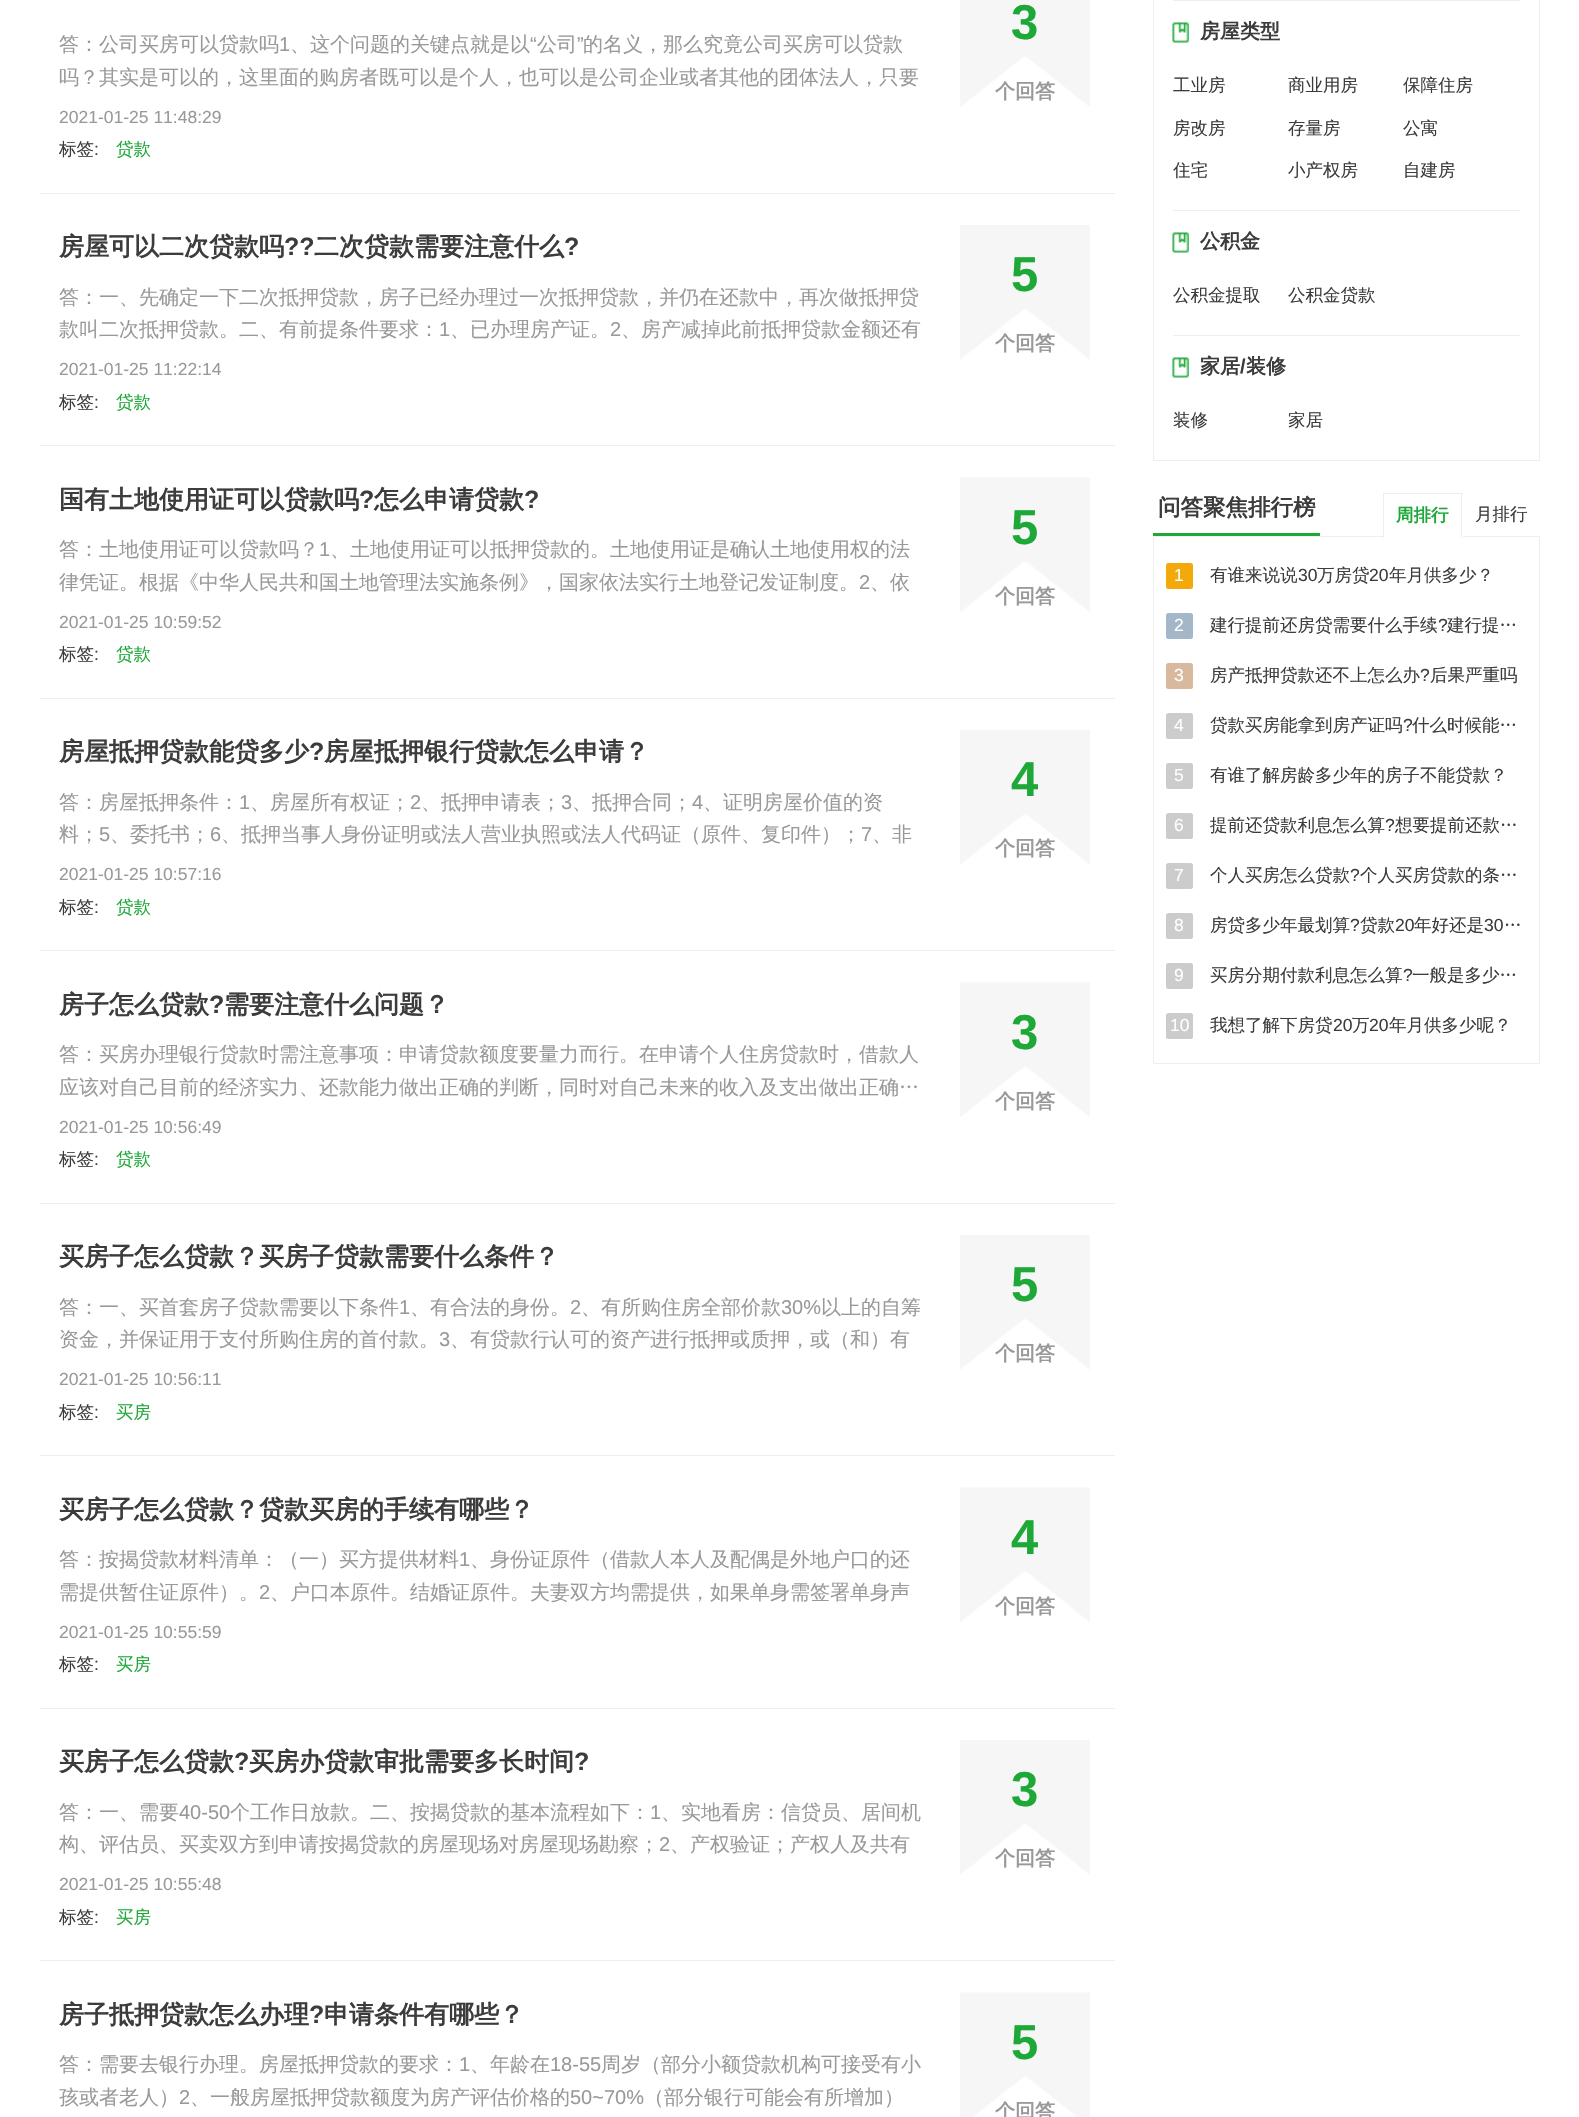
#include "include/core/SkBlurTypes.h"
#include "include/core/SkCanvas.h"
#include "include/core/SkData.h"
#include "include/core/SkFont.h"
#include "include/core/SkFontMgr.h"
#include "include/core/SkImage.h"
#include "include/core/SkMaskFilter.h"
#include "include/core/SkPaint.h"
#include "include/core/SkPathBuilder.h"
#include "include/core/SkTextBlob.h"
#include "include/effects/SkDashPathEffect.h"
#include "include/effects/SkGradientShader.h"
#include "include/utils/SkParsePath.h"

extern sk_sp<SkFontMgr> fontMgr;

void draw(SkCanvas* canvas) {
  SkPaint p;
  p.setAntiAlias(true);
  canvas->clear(SK_ColorWHITE);
  p.setColor(SkColorSetRGB(238, 238, 238));
  canvas->drawRect(SkRect::MakeLTRB(40, 193, 1115, 194), p);
  canvas->drawImageRect(SkImages::DeferredFromEncodedData(SkData::MakeFromFileName("images/1.png")), SkRect::MakeLTRB(960, 0, 1090, 107), SkSamplingOptions());
  canvas->drawRect(SkRect::MakeLTRB(40, 445, 1115, 446), p);
  canvas->drawImageRect(SkImages::DeferredFromEncodedData(SkData::MakeFromFileName("images/2.png")), SkRect::MakeLTRB(960, 225, 1090, 360), SkSamplingOptions());
  canvas->drawRect(SkRect::MakeLTRB(40, 698, 1115, 699), p);
  canvas->drawImageRect(SkImages::DeferredFromEncodedData(SkData::MakeFromFileName("images/3.png")), SkRect::MakeLTRB(960, 477, 1090, 612), SkSamplingOptions());
  canvas->drawRect(SkRect::MakeLTRB(40, 950, 1115, 951), p);
  canvas->drawImageRect(SkImages::DeferredFromEncodedData(SkData::MakeFromFileName("images/4.png")), SkRect::MakeLTRB(960, 730, 1090, 865), SkSamplingOptions());
  canvas->drawRect(SkRect::MakeLTRB(40, 1203, 1115, 1204), p);
  canvas->drawImageRect(SkImages::DeferredFromEncodedData(SkData::MakeFromFileName("images/3.png")), SkRect::MakeLTRB(960, 982, 1090, 1117), SkSamplingOptions());
  canvas->drawRect(SkRect::MakeLTRB(40, 1455, 1115, 1456), p);
  canvas->drawImageRect(SkImages::DeferredFromEncodedData(SkData::MakeFromFileName("images/2.png")), SkRect::MakeLTRB(960, 1235, 1090, 1370), SkSamplingOptions());
  canvas->drawRect(SkRect::MakeLTRB(40, 1708, 1115, 1709), p);
  canvas->drawImageRect(SkImages::DeferredFromEncodedData(SkData::MakeFromFileName("images/3.png")), SkRect::MakeLTRB(960, 1487, 1090, 1622), SkSamplingOptions());
  canvas->drawRect(SkRect::MakeLTRB(40, 1960, 1115, 1961), p);
  canvas->drawImageRect(SkImages::DeferredFromEncodedData(SkData::MakeFromFileName("images/2.png")), SkRect::MakeLTRB(960, 1740, 1090, 1875), SkSamplingOptions());
  canvas->drawImageRect(SkImages::DeferredFromEncodedData(SkData::MakeFromFileName("images/5.png")), SkRect::MakeLTRB(960, 1992, 1090, 2117), SkSamplingOptions());
  p.setStyle(SkPaint::kStroke_Style);
  p.setStrokeWidth(1);
  canvas->drawRect(SkRect::MakeLTRB(1153.5f, -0.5f, 1539.5f, 460.5f), p);
  p.setStyle(SkPaint::kFill_Style);
  canvas->drawRect(SkRect::MakeLTRB(1173, 0, 1520, 1), p);
  canvas->drawRect(SkRect::MakeLTRB(1173, 210, 1520, 211), p);
  canvas->drawImageRect(SkImages::DeferredFromEncodedData(SkData::MakeFromFileName("images/6.png")), SkRect::MakeLTRB(1172, 22, 1189, 43), SkSamplingOptions());
  canvas->drawRect(SkRect::MakeLTRB(1173, 335, 1520, 336), p);
  canvas->drawImageRect(SkImages::DeferredFromEncodedData(SkData::MakeFromFileName("images/6.png")), SkRect::MakeLTRB(1172, 232, 1189, 253), SkSamplingOptions());
  canvas->drawImageRect(SkImages::DeferredFromEncodedData(SkData::MakeFromFileName("images/6.png")), SkRect::MakeLTRB(1172, 357, 1189, 378), SkSamplingOptions());
  p.setColor(SkColorSetRGB(29, 168, 56));
  canvas->drawRect(SkRect::MakeLTRB(1153, 533, 1320, 536), p);
  p.setStyle(SkPaint::kStroke_Style);
  p.setColor(SkColorSetRGB(238, 238, 238));
  canvas->drawRect(SkRect::MakeLTRB(1153.5f, 536.5f, 1539.5f, 1063.5f), p);
  p.setStyle(SkPaint::kFill_Style);
  p.setColor(SK_ColorWHITE);
  canvas->drawRect(SkRect::MakeLTRB(1384, 536, 1463, 537), p);
  p.setColor(SkColorSetRGB(238, 238, 238));
  canvas->drawRect(SkRect::MakeLTRB(1383, 493, 1463, 494), p);
  canvas->drawRect(SkRect::MakeLTRB(1461, 493, 1462, 538), p);
  p.setColor(SK_ColorWHITE);
  canvas->drawRect(SkRect::MakeLTRB(1383, 536, 1463, 537), p);
  p.setColor(SkColorSetRGB(238, 238, 238));
  canvas->drawRect(SkRect::MakeLTRB(1383, 493, 1384, 538), p);
  p.setColor(SkColorSetRGB(243, 169, 10));
  canvas->drawRoundRect(SkRect::MakeLTRB(1166, 563, 1193, 589), 2.5f, 2.5f, p);
  p.setColor(SkColorSetRGB(163, 183, 201));
  canvas->drawRoundRect(SkRect::MakeLTRB(1166, 613, 1193, 639), 2.5f, 2.5f, p);
  p.setColor(SkColorSetRGB(216, 185, 158));
  canvas->drawRoundRect(SkRect::MakeLTRB(1166, 663, 1193, 689), 2.5f, 2.5f, p);
  p.setColor(SkColorSetRGB(204, 204, 204));
  canvas->drawRoundRect(SkRect::MakeLTRB(1166, 713, 1193, 739), 2.5f, 2.5f, p);
  canvas->drawRoundRect(SkRect::MakeLTRB(1166, 763, 1193, 789), 2.5f, 2.5f, p);
  canvas->drawRoundRect(SkRect::MakeLTRB(1166, 813, 1193, 839), 2.5f, 2.5f, p);
  canvas->drawRoundRect(SkRect::MakeLTRB(1166, 863, 1193, 889), 2.5f, 2.5f, p);
  canvas->drawRoundRect(SkRect::MakeLTRB(1166, 913, 1193, 939), 2.5f, 2.5f, p);
  canvas->drawRoundRect(SkRect::MakeLTRB(1166, 963, 1193, 989), 2.5f, 2.5f, p);
  canvas->drawRoundRect(SkRect::MakeLTRB(1166, 1013, 1193, 1039), 2.5f, 2.5f, p);
  SkFont font1(fontMgr->matchFamilyStyle("WenQuanYi Zen Hei", SkFontStyle(500, SkFontStyle::kNormal_Width, SkFontStyle::kUpright_Slant)), 20);
  font1.setSubpixel(true);
  p.setColor(SkColorSetRGB(153, 153, 153));
  canvas->drawString("答：公司买房可以贷款吗", 59, 51, font1, p);
  SkFont font2(fontMgr->matchFamilyStyle("Liberation Sans", SkFontStyle::Normal()), 20);
  font2.setSubpixel(true);
  canvas->drawString("1", 279, 51, font2, p);
  canvas->drawString("、这个问题的关键点就是以", 290, 51, font1, p);
  canvas->drawString("“", 530, 51, font2, p);
  canvas->drawString("公司", 537, 51, font1, p);
  canvas->drawString("”", 577, 51, font2, p);
  canvas->drawString("的名义，那么究竟公司买房可以贷款", 583, 51, font1, p);
  canvas->drawString("吗？其实是可以的，这里面的购房者既可以是个人，也可以是公司企业或者其他的团体法人，只要", 59, 84, font1, p);
  SkFont font3(fontMgr->matchFamilyStyle("Liberation Sans", SkFontStyle::Normal()), 17.5f);
  font3.setSubpixel(true);
  canvas->drawString("2021-01-25 11:48:29", 59, 123, font3, p);
  SkFont font4(fontMgr->matchFamilyStyle("WenQuanYi Zen Hei", SkFontStyle(500, SkFontStyle::kNormal_Width, SkFontStyle::kUpright_Slant)), 17.5f);
  font4.setSubpixel(true);
  p.setColor(SkColorSetRGB(60, 60, 60));
  canvas->drawString("标签", 59, 155, font4, p);
  canvas->drawString(":", 94, 155, font3, p);
  p.setColor(SkColorSetRGB(29, 168, 56));
  canvas->drawString("贷款", 116, 155, font4, p);
  SkFont font5(fontMgr->matchFamilyStyle("Liberation Sans", SkFontStyle::Bold()), 49);
  font5.setSubpixel(true);
  canvas->drawString("3", 1011, 39, font5, p);
  SkFont font6(fontMgr->matchFamilyStyle("WenQuanYi Zen Hei", SkFontStyle::Bold()), 20);
  font6.setSubpixel(true);
  p.setColor(SkColorSetRGB(153, 153, 153));
  canvas->drawString("个回答", 995, 98, font6, p);
  SkFont font7(fontMgr->matchFamilyStyle("WenQuanYi Zen Hei", SkFontStyle::Bold()), 25);
  font7.setSubpixel(true);
  p.setColor(SkColorSetRGB(60, 60, 60));
  canvas->drawString("房屋可以二次贷款吗", 59, 255, font7, p);
  SkFont font8(fontMgr->matchFamilyStyle("Liberation Sans", SkFontStyle::Bold()), 25);
  font8.setSubpixel(true);
  canvas->drawString("?\077", 284, 255, font8, p);
  canvas->drawString("二次贷款需要注意什么", 314, 255, font7, p);
  canvas->drawString("?", 564, 255, font8, p);
  p.setColor(SkColorSetRGB(153, 153, 153));
  canvas->drawString("答：一、先确定一下二次抵押贷款，房子已经办理过一次抵押贷款，并仍在还款中，再次做抵押贷", 59, 304, font1, p);
  canvas->drawString("款叫二次抵押贷款。二、有前提条件要求：", 59, 336, font1, p);
  canvas->drawString("1", 439, 336, font2, p);
  canvas->drawString("、已办理房产证。", 450, 336, font1, p);
  canvas->drawString("2", 610, 336, font2, p);
  canvas->drawString("、房产减掉此前抵押贷款金额还有", 621, 336, font1, p);
  canvas->drawString("2021-01-25 11:22:14", 59, 375, font3, p);
  p.setColor(SkColorSetRGB(60, 60, 60));
  canvas->drawString("标签", 59, 408, font4, p);
  canvas->drawString(":", 94, 408, font3, p);
  p.setColor(SkColorSetRGB(29, 168, 56));
  canvas->drawString("贷款", 116, 408, font4, p);
  canvas->drawString("5", 1011, 291, font5, p);
  p.setColor(SkColorSetRGB(153, 153, 153));
  canvas->drawString("个回答", 995, 350, font6, p);
  p.setColor(SkColorSetRGB(60, 60, 60));
  canvas->drawString("国有土地使用证可以贷款吗", 59, 508, font7, p);
  canvas->drawString("?", 359, 508, font8, p);
  canvas->drawString("怎么申请贷款", 374, 508, font7, p);
  canvas->drawString("?", 524, 508, font8, p);
  p.setColor(SkColorSetRGB(153, 153, 153));
  canvas->drawString("答：土地使用证可以贷款吗？", 59, 556, font1, p);
  canvas->drawString("1", 319, 556, font2, p);
  canvas->drawString("、土地使用证可以抵押贷款的。土地使用证是确认土地使用权的法", 330, 556, font1, p);
  canvas->drawString("律凭证。根据《中华人民共和国土地管理法实施条例》，国家依法实行土地登记发证制度。", 59, 589, font1, p);
  canvas->drawString("2", 859, 589, font2, p);
  canvas->drawString("、依", 870, 589, font1, p);
  canvas->drawString("2021-01-25 10:59:52", 59, 628, font3, p);
  p.setColor(SkColorSetRGB(60, 60, 60));
  canvas->drawString("标签", 59, 660, font4, p);
  canvas->drawString(":", 94, 660, font3, p);
  p.setColor(SkColorSetRGB(29, 168, 56));
  canvas->drawString("贷款", 116, 660, font4, p);
  canvas->drawString("5", 1011, 544, font5, p);
  p.setColor(SkColorSetRGB(153, 153, 153));
  canvas->drawString("个回答", 995, 603, font6, p);
  p.setColor(SkColorSetRGB(60, 60, 60));
  canvas->drawString("房屋抵押贷款能贷多少", 59, 760, font7, p);
  canvas->drawString("?", 309, 760, font8, p);
  canvas->drawString("房屋抵押银行贷款怎么申请？", 324, 760, font7, p);
  p.setColor(SkColorSetRGB(153, 153, 153));
  canvas->drawString("答：房屋抵押条件：", 59, 809, font1, p);
  canvas->drawString("1", 239, 809, font2, p);
  canvas->drawString("、房屋所有权证；", 250, 809, font1, p);
  canvas->drawString("2", 410, 809, font2, p);
  canvas->drawString("、抵押申请表；", 421, 809, font1, p);
  canvas->drawString("3", 561, 809, font2, p);
  canvas->drawString("、抵押合同；", 572, 809, font1, p);
  canvas->drawString("4", 692, 809, font2, p);
  canvas->drawString("、证明房屋价值的资", 703, 809, font1, p);
  canvas->drawString("料；", 59, 841, font1, p);
  canvas->drawString("5", 99, 841, font2, p);
  canvas->drawString("、委托书；", 110, 841, font1, p);
  canvas->drawString("6", 210, 841, font2, p);
  canvas->drawString("、抵押当事人身份证明或法人营业执照或法人代码证（原件、复印件）；", 221, 841, font1, p);
  canvas->drawString("7", 861, 841, font2, p);
  canvas->drawString("、非", 872, 841, font1, p);
  canvas->drawString("2021-01-25 10:57:16", 59, 880, font3, p);
  p.setColor(SkColorSetRGB(60, 60, 60));
  canvas->drawString("标签", 59, 913, font4, p);
  canvas->drawString(":", 94, 913, font3, p);
  p.setColor(SkColorSetRGB(29, 168, 56));
  canvas->drawString("贷款", 116, 913, font4, p);
  canvas->drawString("4", 1011, 796, font5, p);
  p.setColor(SkColorSetRGB(153, 153, 153));
  canvas->drawString("个回答", 995, 855, font6, p);
  p.setColor(SkColorSetRGB(60, 60, 60));
  canvas->drawString("房子怎么贷款", 59, 1013, font7, p);
  canvas->drawString("?", 209, 1013, font8, p);
  canvas->drawString("需要注意什么问题？", 224, 1013, font7, p);
  p.setColor(SkColorSetRGB(153, 153, 153));
  canvas->drawString("答：买房办理银行贷款时需注意事项：申请贷款额度要量力而行。在申请个人住房贷款时，借款人", 59, 1061, font1, p);
  canvas->drawString("应该对自己目前的经济实力、还款能力做出正确的判断，同时对自己未来的收入及支出做出正确…", 59, 1094, font1, p);
  canvas->drawString("2021-01-25 10:56:49", 59, 1133, font3, p);
  p.setColor(SkColorSetRGB(60, 60, 60));
  canvas->drawString("标签", 59, 1165, font4, p);
  canvas->drawString(":", 94, 1165, font3, p);
  p.setColor(SkColorSetRGB(29, 168, 56));
  canvas->drawString("贷款", 116, 1165, font4, p);
  canvas->drawString("3", 1011, 1049, font5, p);
  p.setColor(SkColorSetRGB(153, 153, 153));
  canvas->drawString("个回答", 995, 1108, font6, p);
  p.setColor(SkColorSetRGB(60, 60, 60));
  canvas->drawString("买房子怎么贷款？买房子贷款需要什么条件？", 59, 1265, font7, p);
  p.setColor(SkColorSetRGB(153, 153, 153));
  canvas->drawString("答：一、买首套房子贷款需要以下条件", 59, 1314, font1, p);
  canvas->drawString("1", 399, 1314, font2, p);
  canvas->drawString("、有合法的身份。", 410, 1314, font1, p);
  canvas->drawString("2", 570, 1314, font2, p);
  canvas->drawString("、有所购住房全部价款", 581, 1314, font1, p);
  canvas->drawString("30%", 781, 1314, font2, p);
  canvas->drawString("以上的自筹", 821, 1314, font1, p);
  canvas->drawString("资金，并保证用于支付所购住房的首付款。", 59, 1346, font1, p);
  canvas->drawString("3", 439, 1346, font2, p);
  canvas->drawString("、有贷款行认可的资产进行抵押或质押，或（和）有", 450, 1346, font1, p);
  canvas->drawString("2021-01-25 10:56:11", 59, 1385, font3, p);
  p.setColor(SkColorSetRGB(60, 60, 60));
  canvas->drawString("标签", 59, 1418, font4, p);
  canvas->drawString(":", 94, 1418, font3, p);
  p.setColor(SkColorSetRGB(29, 168, 56));
  canvas->drawString("买房", 116, 1418, font4, p);
  canvas->drawString("5", 1011, 1301, font5, p);
  p.setColor(SkColorSetRGB(153, 153, 153));
  canvas->drawString("个回答", 995, 1360, font6, p);
  p.setColor(SkColorSetRGB(60, 60, 60));
  canvas->drawString("买房子怎么贷款？贷款买房的手续有哪些？", 59, 1518, font7, p);
  p.setColor(SkColorSetRGB(153, 153, 153));
  canvas->drawString("答：按揭贷款材料清单：（一）买方提供材料", 59, 1566, font1, p);
  canvas->drawString("1", 459, 1566, font2, p);
  canvas->drawString("、身份证原件（借款人本人及配偶是外地户口的还", 470, 1566, font1, p);
  canvas->drawString("需提供暂住证原件）。", 59, 1599, font1, p);
  canvas->drawString("2", 259, 1599, font2, p);
  canvas->drawString("、户口本原件。结婚证原件。夫妻双方均需提供，如果单身需签署单身声", 270, 1599, font1, p);
  canvas->drawString("2021-01-25 10:55:59", 59, 1638, font3, p);
  p.setColor(SkColorSetRGB(60, 60, 60));
  canvas->drawString("标签", 59, 1670, font4, p);
  canvas->drawString(":", 94, 1670, font3, p);
  p.setColor(SkColorSetRGB(29, 168, 56));
  canvas->drawString("买房", 116, 1670, font4, p);
  canvas->drawString("4", 1011, 1554, font5, p);
  p.setColor(SkColorSetRGB(153, 153, 153));
  canvas->drawString("个回答", 995, 1613, font6, p);
  p.setColor(SkColorSetRGB(60, 60, 60));
  canvas->drawString("买房子怎么贷款", 59, 1770, font7, p);
  canvas->drawString("?", 234, 1770, font8, p);
  canvas->drawString("买房办贷款审批需要多长时间", 249, 1770, font7, p);
  canvas->drawString("?", 574, 1770, font8, p);
  p.setColor(SkColorSetRGB(153, 153, 153));
  canvas->drawString("答：一、需要", 59, 1819, font1, p);
  canvas->drawString("40-50", 179, 1819, font2, p);
  canvas->drawString("个工作日放款。二、按揭贷款的基本流程如下：", 230, 1819, font1, p);
  canvas->drawString("1", 650, 1819, font2, p);
  canvas->drawString("、实地看房：信贷员、居间机", 661, 1819, font1, p);
  canvas->drawString("构、评估员、买卖双方到申请按揭贷款的房屋现场对房屋现场勘察；", 59, 1851, font1, p);
  canvas->drawString("2", 659, 1851, font2, p);
  canvas->drawString("、产权验证；产权人及共有", 670, 1851, font1, p);
  canvas->drawString("2021-01-25 10:55:48", 59, 1890, font3, p);
  p.setColor(SkColorSetRGB(60, 60, 60));
  canvas->drawString("标签", 59, 1923, font4, p);
  canvas->drawString(":", 94, 1923, font3, p);
  p.setColor(SkColorSetRGB(29, 168, 56));
  canvas->drawString("买房", 116, 1923, font4, p);
  canvas->drawString("3", 1011, 1806, font5, p);
  p.setColor(SkColorSetRGB(153, 153, 153));
  canvas->drawString("个回答", 995, 1865, font6, p);
  p.setColor(SkColorSetRGB(60, 60, 60));
  canvas->drawString("房子抵押贷款怎么办理", 59, 2023, font7, p);
  canvas->drawString("?", 309, 2023, font8, p);
  canvas->drawString("申请条件有哪些？", 324, 2023, font7, p);
  p.setColor(SkColorSetRGB(153, 153, 153));
  canvas->drawString("答：需要去银行办理。房屋抵押贷款的要求：", 59, 2071, font1, p);
  canvas->drawString("1", 459, 2071, font2, p);
  canvas->drawString("、年龄在", 470, 2071, font1, p);
  canvas->drawString("18-55", 550, 2071, font2, p);
  canvas->drawString("周岁（部分小额贷款机构可接受有小", 601, 2071, font1, p);
  canvas->drawString("孩或者老人）", 59, 2104, font1, p);
  canvas->drawString("2", 179, 2104, font2, p);
  canvas->drawString("、一般房屋抵押贷款额度为房产评估价格的", 190, 2104, font1, p);
  canvas->drawString("50~70%", 570, 2104, font2, p);
  canvas->drawString("（部分银行可能会有所增加）", 644, 2104, font1, p);
  p.setColor(SkColorSetRGB(29, 168, 56));
  canvas->drawString("5", 1011, 2059, font5, p);
  p.setColor(SkColorSetRGB(153, 153, 153));
  canvas->drawString("个回答", 995, 2118, font6, p);
  p.setColor(SkColorSetRGB(60, 60, 60));
  canvas->drawString("房屋类型", 1200, 38, font6, p);
  canvas->drawString("工业房", 1173, 91, font4, p);
  canvas->drawString("商业用房", 1288, 91, font4, p);
  canvas->drawString("保障住房", 1403, 91, font4, p);
  canvas->drawString("房改房", 1173, 134, font4, p);
  canvas->drawString("存量房", 1288, 134, font4, p);
  canvas->drawString("公寓", 1403, 134, font4, p);
  canvas->drawString("住宅", 1173, 176, font4, p);
  canvas->drawString("小产权房", 1288, 176, font4, p);
  canvas->drawString("自建房", 1403, 176, font4, p);
  canvas->drawString("公积金", 1200, 248, font6, p);
  canvas->drawString("公积金提取", 1173, 301, font4, p);
  canvas->drawString("公积金贷款", 1288, 301, font4, p);
  canvas->drawString("家居", 1200, 373, font6, p);
  SkFont font9(fontMgr->matchFamilyStyle("Liberation Sans", SkFontStyle::Bold()), 20);
  font9.setSubpixel(true);
  canvas->drawString("/", 1240, 373, font9, p);
  canvas->drawString("装修", 1246, 373, font6, p);
  canvas->drawString("装修", 1173, 426, font4, p);
  canvas->drawString("家居", 1288, 426, font4, p);
  SkFont font10(fontMgr->matchFamilyStyle("WenQuanYi Zen Hei", SkFontStyle::Bold()), 22.5f);
  font10.setSubpixel(true);
  canvas->drawString("问答聚焦排行榜", 1158, 515, font10, p);
  SkFont font11(fontMgr->matchFamilyStyle("WenQuanYi Zen Hei", SkFontStyle::Bold()), 17.5f);
  font11.setSubpixel(true);
  p.setColor(SkColorSetRGB(29, 168, 56));
  canvas->drawString("周排行", 1396, 521, font11, p);
  p.setColor(SkColorSetRGB(60, 60, 60));
  canvas->drawString("月排行", 1475, 520, font4, p);
  p.setColor(SK_ColorWHITE);
  canvas->drawString("1", 1174, 581, font3, p);
  p.setColor(SkColorSetRGB(60, 60, 60));
  canvas->drawString("有谁来说说", 1210, 581, font4, p);
  canvas->drawString("30", 1298, 581, font3, p);
  canvas->drawString("万房贷", 1317, 581, font4, p);
  canvas->drawString("20", 1369, 581, font3, p);
  canvas->drawString("年月供多少？", 1389, 581, font4, p);
  p.setColor(SK_ColorWHITE);
  canvas->drawString("2", 1174, 631, font3, p);
  p.setColor(SkColorSetRGB(60, 60, 60));
  canvas->drawString("建行提前还房贷需要什么手续", 1210, 631, font4, p);
  canvas->drawString("?", 1438, 631, font3, p);
  canvas->drawString("建行提…", 1447, 631, font4, p);
  p.setColor(SK_ColorWHITE);
  canvas->drawString("3", 1174, 681, font3, p);
  p.setColor(SkColorSetRGB(60, 60, 60));
  canvas->drawString("房产抵押贷款还不上怎么办", 1210, 681, font4, p);
  canvas->drawString("?", 1420, 681, font3, p);
  canvas->drawString("后果严重吗", 1430, 681, font4, p);
  p.setColor(SK_ColorWHITE);
  canvas->drawString("4", 1174, 731, font3, p);
  p.setColor(SkColorSetRGB(60, 60, 60));
  canvas->drawString("贷款买房能拿到房产证吗", 1210, 731, font4, p);
  canvas->drawString("?", 1403, 731, font3, p);
  canvas->drawString("什么时候能…", 1412, 731, font4, p);
  p.setColor(SK_ColorWHITE);
  canvas->drawString("5", 1174, 781, font3, p);
  p.setColor(SkColorSetRGB(60, 60, 60));
  canvas->drawString("有谁了解房龄多少年的房子不能贷款？", 1210, 781, font4, p);
  p.setColor(SK_ColorWHITE);
  canvas->drawString("6", 1174, 831, font3, p);
  p.setColor(SkColorSetRGB(60, 60, 60));
  canvas->drawString("提前还贷款利息怎么算", 1210, 831, font4, p);
  canvas->drawString("?", 1385, 831, font3, p);
  canvas->drawString("想要提前还款…", 1395, 831, font4, p);
  p.setColor(SK_ColorWHITE);
  canvas->drawString("7", 1174, 881, font3, p);
  p.setColor(SkColorSetRGB(60, 60, 60));
  canvas->drawString("个人买房怎么贷款", 1210, 881, font4, p);
  canvas->drawString("?", 1350, 881, font3, p);
  canvas->drawString("个人买房贷款的条…", 1360, 881, font4, p);
  p.setColor(SK_ColorWHITE);
  canvas->drawString("8", 1174, 931, font3, p);
  p.setColor(SkColorSetRGB(60, 60, 60));
  canvas->drawString("房贷多少年最划算", 1210, 931, font4, p);
  canvas->drawString("?", 1350, 931, font3, p);
  canvas->drawString("贷款", 1360, 931, font4, p);
  canvas->drawString("20", 1395, 931, font3, p);
  canvas->drawString("年好还是", 1414, 931, font4, p);
  canvas->drawString("30", 1484, 931, font3, p);
  canvas->drawString("…", 1504, 931, font4, p);
  p.setColor(SK_ColorWHITE);
  canvas->drawString("9", 1174, 981, font3, p);
  p.setColor(SkColorSetRGB(60, 60, 60));
  canvas->drawString("买房分期付款利息怎么算", 1210, 981, font4, p);
  canvas->drawString("?", 1403, 981, font3, p);
  canvas->drawString("一般是多少…", 1412, 981, font4, p);
  p.setColor(SK_ColorWHITE);
  canvas->drawString("10", 1170, 1031, font3, p);
  p.setColor(SkColorSetRGB(60, 60, 60));
  canvas->drawString("我想了解下房贷", 1210, 1031, font4, p);
  canvas->drawString("20", 1333, 1031, font3, p);
  canvas->drawString("万", 1352, 1031, font4, p);
  canvas->drawString("20", 1369, 1031, font3, p);
  canvas->drawString("年月供多少呢？", 1389, 1031, font4, p);
}
